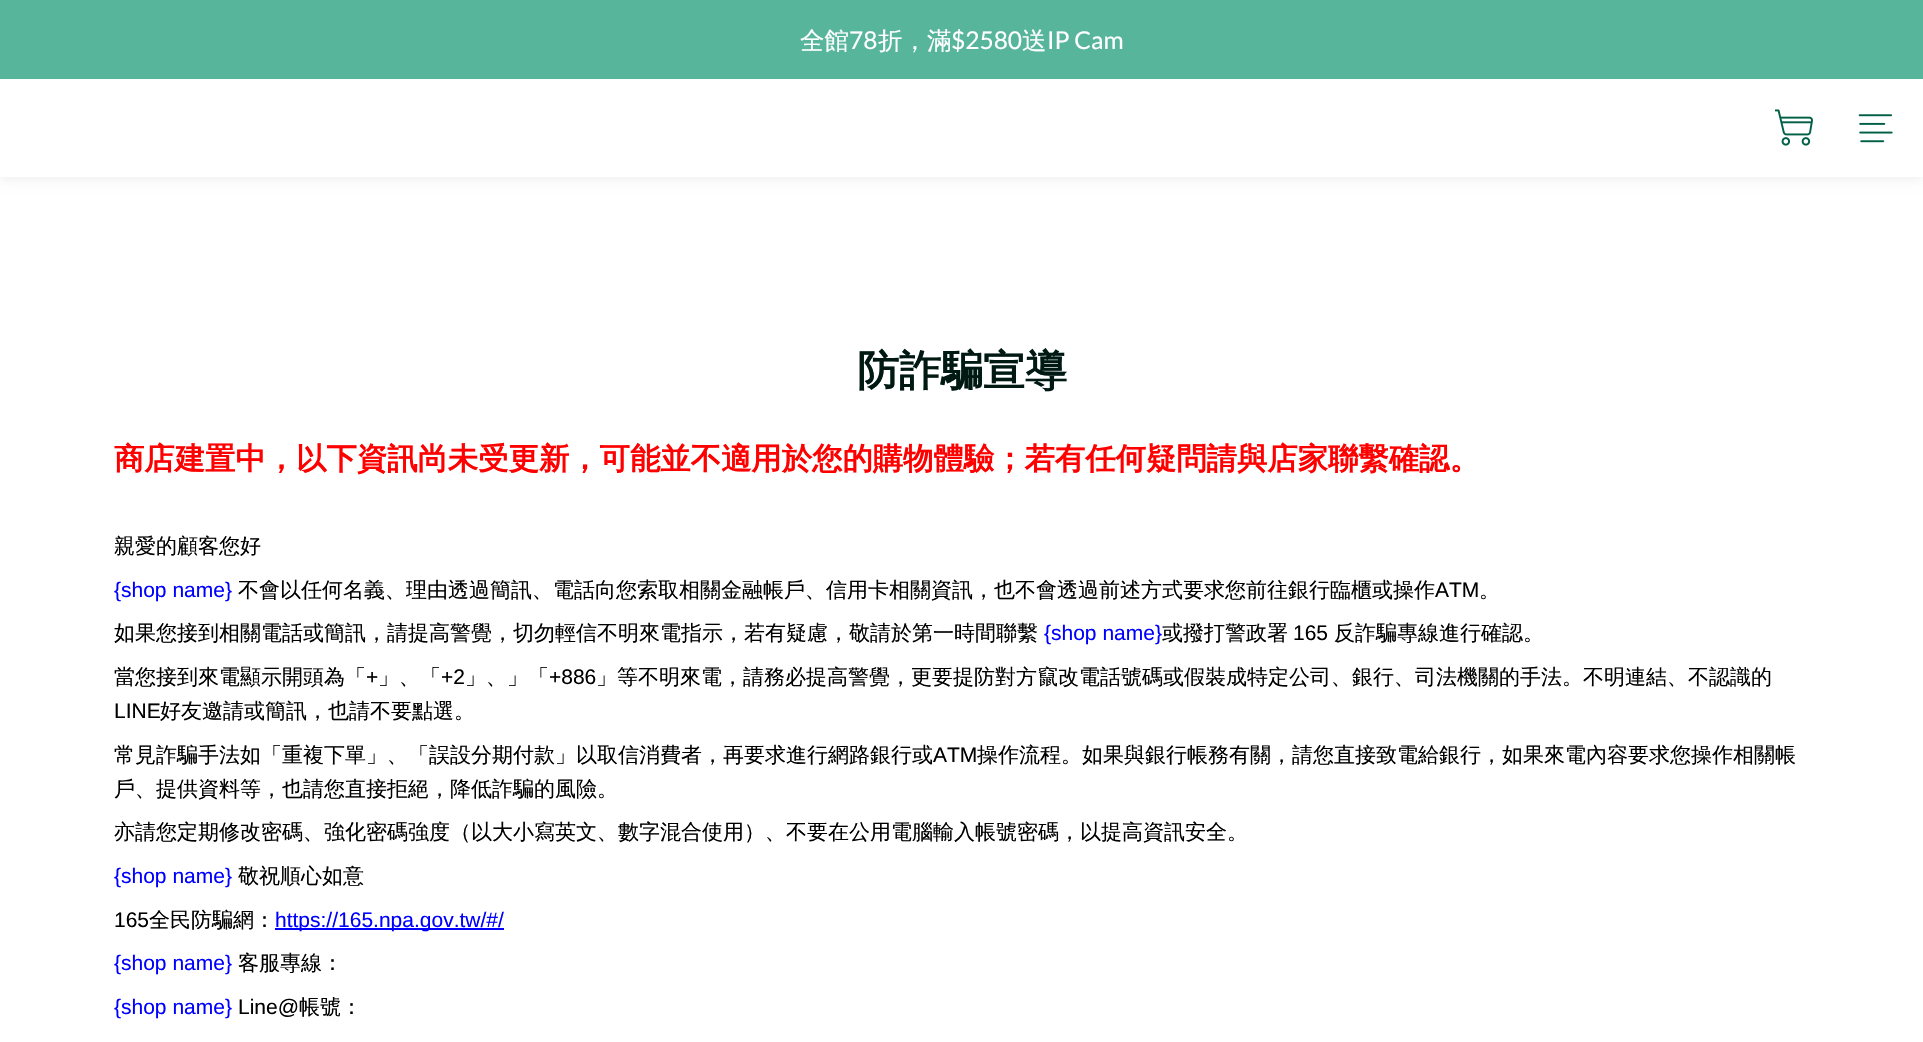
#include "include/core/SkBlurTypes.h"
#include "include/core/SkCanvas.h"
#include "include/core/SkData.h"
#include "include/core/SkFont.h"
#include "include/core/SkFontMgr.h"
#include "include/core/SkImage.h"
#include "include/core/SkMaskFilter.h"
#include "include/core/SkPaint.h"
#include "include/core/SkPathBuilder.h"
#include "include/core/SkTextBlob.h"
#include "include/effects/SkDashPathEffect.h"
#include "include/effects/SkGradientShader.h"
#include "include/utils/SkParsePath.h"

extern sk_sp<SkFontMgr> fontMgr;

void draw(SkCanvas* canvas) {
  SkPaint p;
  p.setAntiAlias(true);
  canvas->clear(SK_ColorWHITE);
  p.setColor(SkColorSetARGB(15, 0, 0, 0));
  p.setMaskFilter(SkMaskFilter::MakeBlur(kNormal_SkBlurStyle, 5));
  canvas->drawRect(SkRect::MakeLTRB(0, 82, 1923, 180), p);
  p.setMaskFilter(nullptr);
  p.setColor(SkColorSetRGB(87, 181, 156));
  canvas->drawRect(SkRect::MakeLTRB(0, 0, 1923, 79), p);
  p.setColor(SK_ColorWHITE);
  canvas->drawRect(SkRect::MakeLTRB(0, 79, 1923, 177), p);
  canvas->drawImageRect(SkImages::DeferredFromEncodedData(SkData::MakeFromFileName("images/1.png")), SkRect::MakeLTRB(1775, 109, 1813, 146), SkSamplingOptions());
  canvas->drawImageRect(SkImages::DeferredFromEncodedData(SkData::MakeFromFileName("images/2.png")), SkRect::MakeLTRB(1858, 114, 1893, 143), SkSamplingOptions());
  p.setColor(SkColorSetRGB(0, 0, 255));
  canvas->drawRect(SkRect::MakeLTRB(275, 928, 504, 930), p);
  SkFont font1(fontMgr->matchFamilyStyle("WenQuanYi Zen Hei", SkFontStyle(500, SkFontStyle::kNormal_Width, SkFontStyle::kUpright_Slant)), 24.5f);
  font1.setSubpixel(true);
  p.setColor(SK_ColorWHITE);
  canvas->drawString("全館", 800, 49, font1, p);
  SkFont font2(fontMgr->matchFamilyStyle("Lato", SkFontStyle::Normal()), 24.5f);
  font2.setSubpixel(true);
  canvas->drawString("78", 849, 49, font2, p);
  canvas->drawString("折，滿", 878, 49, font1, p);
  canvas->drawString("$2580", 951, 49, font2, p);
  canvas->drawString("送", 1022, 49, font1, p);
  canvas->drawString("IP Cam", 1047, 49, font2, p);
  SkFont font3(fontMgr->matchFamilyStyle("WenQuanYi Zen Hei", SkFontStyle::Bold()), 42);
  font3.setSubpixel(true);
  p.setColor(SkColorSetRGB(0, 25, 18));
  canvas->drawString("防詐騙宣導", 857, 385, font3, p);
  SkFont font4(fontMgr->matchFamilyStyle("WenQuanYi Zen Hei", SkFontStyle::Bold()), 30.35f);
  font4.setSubpixel(true);
  p.setColor(SkColorSetRGB(255, 0, 0));
  canvas->drawString("商店建置中，以下資訊尚未受更新，可能並不適用於您的購物體驗；若有任何疑問請與店家聯繫確認。", 114, 469, font4, p);
  SkFont font5(fontMgr->matchFamilyStyle("WenQuanYi Zen Hei", SkFontStyle(500, SkFontStyle::kNormal_Width, SkFontStyle::kUpright_Slant)), 21);
  font5.setSubpixel(true);
  p.setColor(SK_ColorBLACK);
  canvas->drawString("親愛的顧客您好", 114, 553, font5, p);
  SkFont font6(fontMgr->matchFamilyStyle("Liberation Sans", SkFontStyle::Normal()), 21);
  font6.setSubpixel(true);
  p.setColor(SkColorSetRGB(0, 0, 255));
  canvas->drawString("{shop name}", 114, 597, font6, p);
  p.setColor(SK_ColorBLACK);
  canvas->drawString("不會以任何名義、理由透過簡訊、電話向您索取相關金融帳戶、信用卡相關資訊，也不會透過前述方式要求您前往銀行臨櫃或操作", 238, 597, font5, p);
  canvas->drawString("ATM", 1435, 597, font6, p);
  canvas->drawString("。", 1479, 597, font5, p);
  canvas->drawString("如果您接到相關電話或簡訊，請提高警覺，切勿輕信不明來電指示，若有疑慮，敬請於第一時間聯繫", 114, 640, font5, p);
  p.setColor(SkColorSetRGB(0, 0, 255));
  canvas->drawString("{shop name}", 1044, 640, font6, p);
  p.setColor(SK_ColorBLACK);
  canvas->drawString("或撥打警政署", 1162, 640, font5, p);
  canvas->drawString("165", 1293, 640, font6, p);
  canvas->drawString("反詐騙專線進行確認。", 1334, 640, font5, p);
  canvas->drawString("當您接到來電顯示開頭為「", 114, 684, font5, p);
  canvas->drawString("+", 366, 684, font6, p);
  canvas->drawString("」、「", 378, 684, font5, p);
  canvas->drawString("+2", 441, 684, font6, p);
  canvas->drawString("」、」「", 465, 684, font5, p);
  canvas->drawString("+886", 549, 684, font6, p);
  canvas->drawString("」等不明來電，請務必提高警覺，更要提防對方竄改電話號碼或假裝成特定公司、銀行、司法機關的手法。不明連結、不認識的", 596, 684, font5, p);
  canvas->drawString("LINE", 114, 718, font6, p);
  canvas->drawString("好友邀請或簡訊，也請不要點選。", 160, 718, font5, p);
  canvas->drawString("常見詐騙手法如「重複下單」、「誤設分期付款」以取信消費者，再要求進行網路銀行或", 114, 762, font5, p);
  canvas->drawString("ATM", 933, 762, font6, p);
  canvas->drawString("操作流程。如果與銀行帳務有關，請您直接致電給銀行，如果來電內容要求您操作相關帳", 977, 762, font5, p);
  canvas->drawString("戶、提供資料等，也請您直接拒絕，降低詐騙的風險。", 114, 796, font5, p);
  canvas->drawString("亦請您定期修改密碼、強化密碼強度（以大小寫英文、數字混合使用）、不要在公用電腦輸入帳號密碼，以提高資訊安全。", 114, 839, font5, p);
  p.setColor(SkColorSetRGB(0, 0, 255));
  canvas->drawString("{shop name}", 114, 883, font6, p);
  p.setColor(SK_ColorBLACK);
  canvas->drawString("敬祝順心如意", 238, 883, font5, p);
  canvas->drawString("165", 114, 927, font6, p);
  canvas->drawString("全民防騙網：", 149, 927, font5, p);
  p.setColor(SkColorSetRGB(0, 0, 255));
  canvas->drawString("https://165.npa.gov.tw/#/", 275, 927, font6, p);
  canvas->drawString("{shop name}", 114, 970, font6, p);
  p.setColor(SK_ColorBLACK);
  canvas->drawString("客服專線：", 238, 970, font5, p);
  p.setColor(SkColorSetRGB(0, 0, 255));
  canvas->drawString("{shop name}", 114, 1014, font6, p);
  p.setColor(SK_ColorBLACK);
  canvas->drawString("Line@", 238, 1014, font6, p);
  canvas->drawString("帳號：", 299, 1014, font5, p);
}
